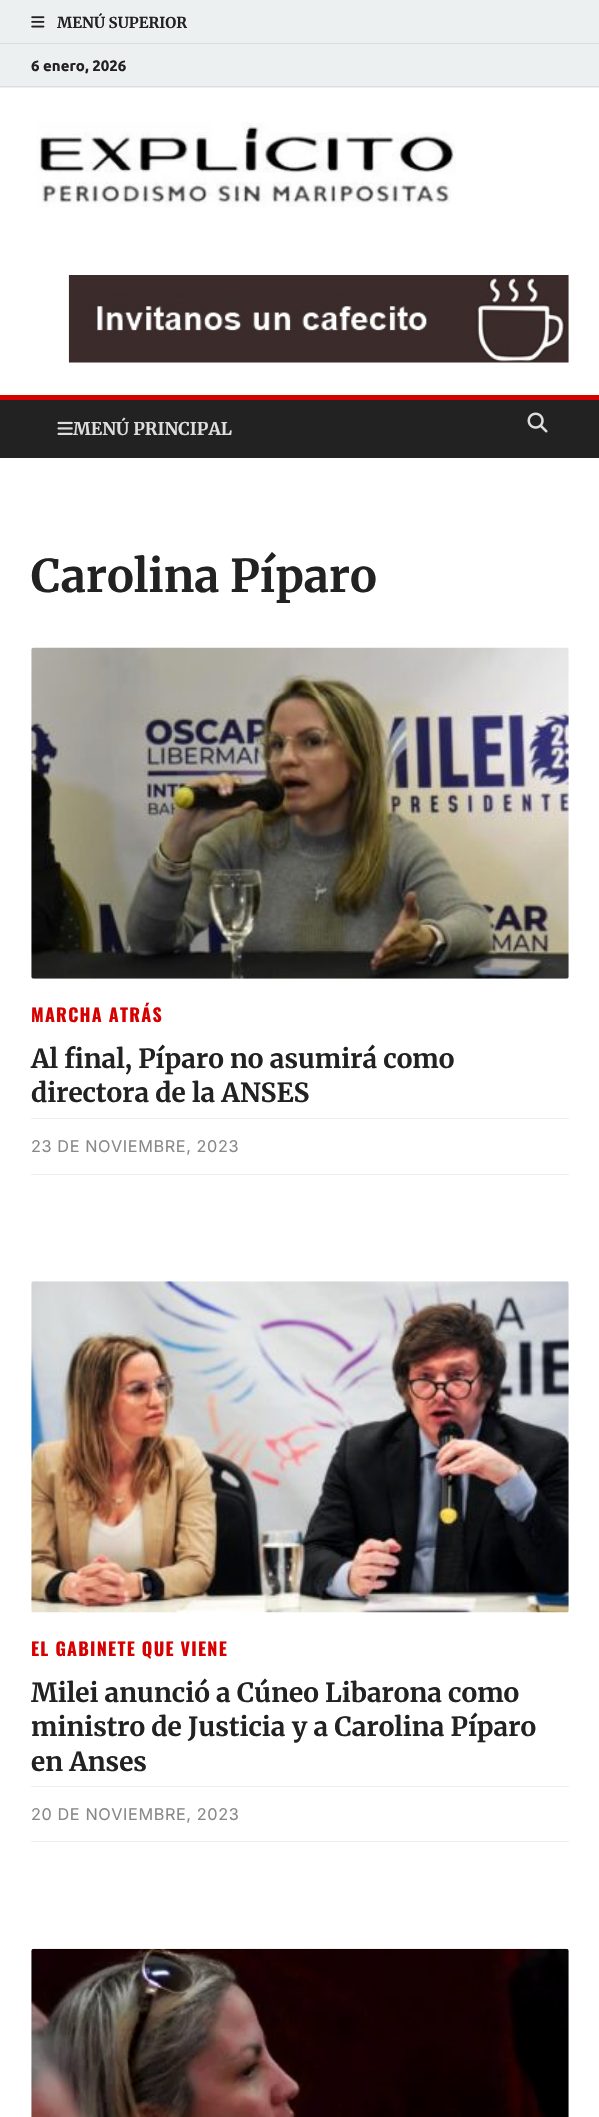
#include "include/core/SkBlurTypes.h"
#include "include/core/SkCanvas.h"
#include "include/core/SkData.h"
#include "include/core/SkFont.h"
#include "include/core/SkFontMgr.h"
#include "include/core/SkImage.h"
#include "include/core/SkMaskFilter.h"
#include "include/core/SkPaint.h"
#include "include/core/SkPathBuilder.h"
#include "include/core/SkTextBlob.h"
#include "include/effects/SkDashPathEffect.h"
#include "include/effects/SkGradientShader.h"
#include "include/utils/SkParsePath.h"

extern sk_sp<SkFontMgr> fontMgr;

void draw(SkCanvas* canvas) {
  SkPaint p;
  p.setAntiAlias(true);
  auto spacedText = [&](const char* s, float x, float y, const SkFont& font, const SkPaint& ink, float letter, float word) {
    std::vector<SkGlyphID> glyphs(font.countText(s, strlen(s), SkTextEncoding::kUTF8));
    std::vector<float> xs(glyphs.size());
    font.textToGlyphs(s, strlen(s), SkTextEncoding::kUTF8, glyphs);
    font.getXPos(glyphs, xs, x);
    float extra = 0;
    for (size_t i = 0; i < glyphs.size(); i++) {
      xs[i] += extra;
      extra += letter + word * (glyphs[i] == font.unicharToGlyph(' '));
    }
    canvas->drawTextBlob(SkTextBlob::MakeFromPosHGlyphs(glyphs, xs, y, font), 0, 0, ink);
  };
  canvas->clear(SK_ColorWHITE);
  p.setColor(SkColorSetRGB(236, 240, 241));
  canvas->drawRect(SkRect::MakeLTRB(0, 0, 599, 43), p);
  p.setColor(SkColorSetRGB(221, 221, 221));
  canvas->drawRect(SkRect::MakeLTRB(0, 43, 599, 44), p);
  canvas->drawImageRect(SkImages::DeferredFromEncodedData(SkData::MakeFromFileName("images/1.png")), SkRect::MakeLTRB(31, 16, 45, 28), SkSamplingOptions());
  p.setColor(SkColorSetRGB(236, 240, 241));
  canvas->drawRect(SkRect::MakeLTRB(0, 44, 599, 88), p);
  p.setColor(SkColorSetRGB(221, 221, 221));
  canvas->drawRect(SkRect::MakeLTRB(0, 86, 599, 87), p);
  canvas->drawImageRect(SkImages::DeferredFromEncodedData(SkData::MakeFromFileName("images/2.png")), SkRect::MakeLTRB(36, 122, 456, 207), SkSamplingOptions());
  canvas->drawImageRect(SkImages::DeferredFromEncodedData(SkData::MakeFromFileName("images/3.png")), SkRect::MakeLTRB(68, 275, 569, 363), SkSamplingOptions());
  p.setColor(SkColorSetRGB(34, 34, 34));
  canvas->drawRect(SkRect::MakeLTRB(0, 400, 599, 458), p);
  p.setColor(SkColorSetRGB(214, 0, 0));
  canvas->drawRect(SkRect::MakeLTRB(0, 395, 599, 400), p);
  canvas->drawImageRect(SkImages::DeferredFromEncodedData(SkData::MakeFromFileName("images/4.png")), SkRect::MakeLTRB(527, 412, 548, 433), SkSamplingOptions());
  canvas->drawImageRect(SkImages::DeferredFromEncodedData(SkData::MakeFromFileName("images/5.png")), SkRect::MakeLTRB(57, 421, 73, 435), SkSamplingOptions());
  canvas->drawImageRect(SkImages::DeferredFromEncodedData(SkData::MakeFromFileName("images/6.png")), SkRect::MakeLTRB(31, 647, 569, 979), SkSamplingOptions());
  p.setColor(SkColorSetRGB(238, 238, 238));
  canvas->drawRect(SkRect::MakeLTRB(31, 1118, 569, 1119), p);
  canvas->drawRect(SkRect::MakeLTRB(31, 1174, 569, 1175), p);
  canvas->drawImageRect(SkImages::DeferredFromEncodedData(SkData::MakeFromFileName("images/7.png")), SkRect::MakeLTRB(31, 1281, 569, 1613), SkSamplingOptions());
  canvas->drawRect(SkRect::MakeLTRB(31, 1786, 569, 1787), p);
  canvas->drawRect(SkRect::MakeLTRB(31, 1841, 569, 1842), p);
  canvas->drawImageRect(SkImages::DeferredFromEncodedData(SkData::MakeFromFileName("images/8.png")), SkRect::MakeLTRB(31, 1948, 569, 2117), SkSamplingOptions());
  SkFont font1(fontMgr->matchFamilyStyle("Merriweather", SkFontStyle::Bold()), 15);
  font1.setSubpixel(true);
  p.setColor(SkColorSetRGB(34, 34, 34));
  canvas->drawString("MENÚ SUPERIOR", 57, 28, font1, p);
  SkFont font2(fontMgr->matchFamilyStyle("Ubuntu", SkFontStyle::Bold()), 15);
  font2.setSubpixel(true);
  canvas->drawString("6 enero, 2026", 31, 71, font2, p);
  SkFont font3(fontMgr->matchFamilyStyle("Merriweather", SkFontStyle::Bold()), 17.5f);
  font3.setSubpixel(true);
  p.setColor(SkColorSetRGB(221, 221, 221));
  canvas->drawString("MENÚ PRINCIPAL", 73, 435, font3, p);
  SkFont font4(fontMgr->matchFamilyStyle("Merriweather", SkFontStyle::Bold()), 45);
  font4.setSubpixel(true);
  p.setColor(SkColorSetRGB(34, 34, 34));
  canvas->drawString("Carolina Píparo", 31, 592, font4, p);
  SkFont font5(fontMgr->matchFamilyStyle("Oswald", SkFontStyle::Bold()), 18);
  font5.setSubpixel(true);
  p.setColor(SkColorSetRGB(214, 0, 0));
  spacedText("MARCHA ATRÁS", 31, 1022, font5, p, 1.25f, 0);
  SkFont font6(fontMgr->matchFamilyStyle("Merriweather", SkFontStyle::Bold()), 26.25f);
  font6.setSubpixel(true);
  p.setColor(SkColorSetRGB(34, 34, 34));
  canvas->drawString("Al final, Píparo no asumirá como", 31, 1068, font6, p);
  canvas->drawString("directora de la ANSES", 31, 1102, font6, p);
  SkFont font7(fontMgr->matchFamilyStyle("Inter", SkFontStyle::Normal()), 16.25f);
  font7.setSubpixel(true);
  p.setColor(SkColorSetRGB(136, 136, 136));
  spacedText("23 DE NOVIEMBRE, 2023", 31, 1152, font7, p, 0.6f, 0);
  p.setColor(SkColorSetRGB(214, 0, 0));
  spacedText("EL GABINETE QUE VIENE", 31, 1656, font5, p, 1.25f, 0);
  p.setColor(SkColorSetRGB(34, 34, 34));
  canvas->drawString("Milei anunció a Cúneo Libarona como", 31, 1702, font6, p);
  canvas->drawString("ministro de Justicia y a Carolina Píparo", 31, 1736, font6, p);
  canvas->drawString("en Anses", 31, 1771, font6, p);
  p.setColor(SkColorSetRGB(136, 136, 136));
  spacedText("20 DE NOVIEMBRE, 2023", 31, 1820, font7, p, 0.6f, 0);
}
